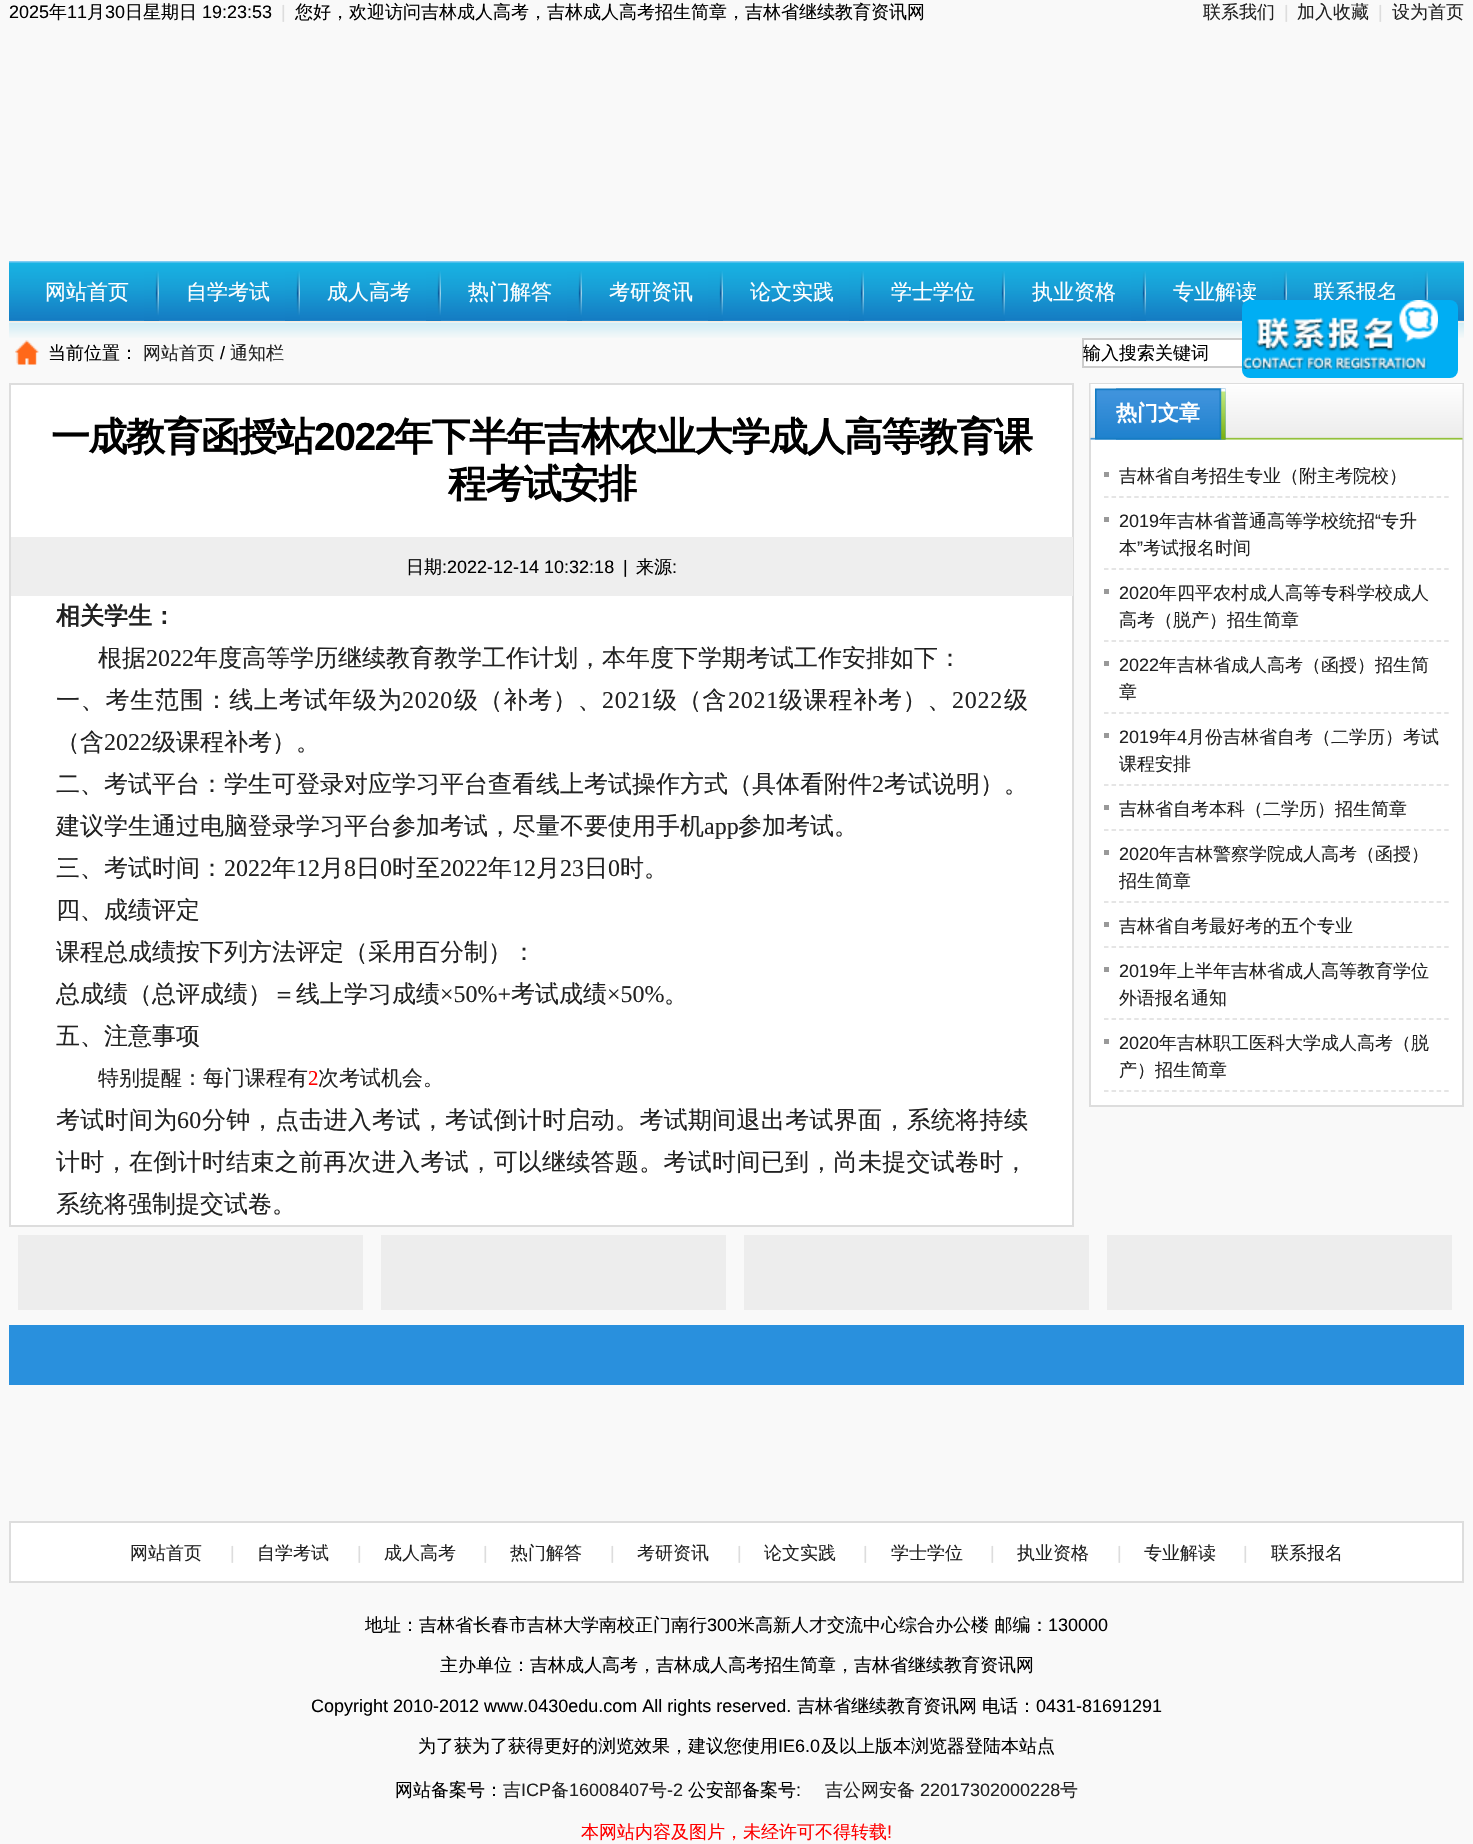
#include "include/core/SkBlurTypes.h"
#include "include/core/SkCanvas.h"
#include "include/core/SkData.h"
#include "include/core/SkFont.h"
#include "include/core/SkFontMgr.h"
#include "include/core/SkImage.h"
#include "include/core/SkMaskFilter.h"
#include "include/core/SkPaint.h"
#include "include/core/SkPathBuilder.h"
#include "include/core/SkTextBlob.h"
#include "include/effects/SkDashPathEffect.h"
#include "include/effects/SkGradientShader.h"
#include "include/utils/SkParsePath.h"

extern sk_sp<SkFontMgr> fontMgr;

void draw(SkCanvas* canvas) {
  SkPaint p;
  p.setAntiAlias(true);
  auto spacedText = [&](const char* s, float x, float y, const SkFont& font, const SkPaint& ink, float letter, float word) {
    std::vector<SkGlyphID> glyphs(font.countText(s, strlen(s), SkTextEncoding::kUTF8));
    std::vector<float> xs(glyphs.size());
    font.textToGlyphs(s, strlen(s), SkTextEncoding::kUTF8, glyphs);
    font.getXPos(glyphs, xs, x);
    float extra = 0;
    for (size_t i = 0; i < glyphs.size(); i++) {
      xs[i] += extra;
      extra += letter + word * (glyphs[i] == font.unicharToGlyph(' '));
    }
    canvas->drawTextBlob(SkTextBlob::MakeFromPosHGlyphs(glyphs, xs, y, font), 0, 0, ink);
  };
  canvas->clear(SkColorSetRGB(249, 249, 249));
  canvas->drawImageRect(SkImages::DeferredFromEncodedData(SkData::MakeFromFileName("images/1.png")), SkRect::MakeLTRB(9, 261, 1464, 321), SkSamplingOptions());
  canvas->drawImageRect(SkImages::DeferredFromEncodedData(SkData::MakeFromFileName("images/2.png")), SkRect::MakeLTRB(144, 271, 159, 321), SkSamplingOptions());
  canvas->drawImageRect(SkImages::DeferredFromEncodedData(SkData::MakeFromFileName("images/3.png")), SkRect::MakeLTRB(285, 271, 300, 321), SkSamplingOptions());
  canvas->drawImageRect(SkImages::DeferredFromEncodedData(SkData::MakeFromFileName("images/3.png")), SkRect::MakeLTRB(426, 271, 441, 321), SkSamplingOptions());
  canvas->drawImageRect(SkImages::DeferredFromEncodedData(SkData::MakeFromFileName("images/3.png")), SkRect::MakeLTRB(567, 271, 582, 321), SkSamplingOptions());
  canvas->drawImageRect(SkImages::DeferredFromEncodedData(SkData::MakeFromFileName("images/3.png")), SkRect::MakeLTRB(708, 271, 723, 321), SkSamplingOptions());
  canvas->drawImageRect(SkImages::DeferredFromEncodedData(SkData::MakeFromFileName("images/2.png")), SkRect::MakeLTRB(849, 271, 864, 321), SkSamplingOptions());
  canvas->drawImageRect(SkImages::DeferredFromEncodedData(SkData::MakeFromFileName("images/2.png")), SkRect::MakeLTRB(990, 271, 1005, 321), SkSamplingOptions());
  canvas->drawImageRect(SkImages::DeferredFromEncodedData(SkData::MakeFromFileName("images/3.png")), SkRect::MakeLTRB(1131, 271, 1146, 321), SkSamplingOptions());
  canvas->drawImageRect(SkImages::DeferredFromEncodedData(SkData::MakeFromFileName("images/4.png")), SkRect::MakeLTRB(1272, 271, 1287, 300), SkSamplingOptions());
  canvas->drawImageRect(SkImages::DeferredFromEncodedData(SkData::MakeFromFileName("images/4.png")), SkRect::MakeLTRB(1413, 271, 1428, 300), SkSamplingOptions());
  canvas->drawImageRect(SkImages::DeferredFromEncodedData(SkData::MakeFromFileName("images/5.png")), SkRect::MakeLTRB(9, 321, 1464, 338), SkSamplingOptions());
  canvas->drawImageRect(SkImages::DeferredFromEncodedData(SkData::MakeFromFileName("images/6.png")), SkRect::MakeLTRB(15, 340, 39, 365), SkSamplingOptions());
  p.setColor(SK_ColorWHITE);
  canvas->drawRect(SkRect::MakeLTRB(1084, 340, 1242, 366), p);
  p.setStyle(SkPaint::kStroke_Style);
  p.setStrokeWidth(2);
  p.setColor(SkColorSetRGB(204, 204, 204));
  canvas->drawRect(SkRect::MakeLTRB(1083, 339, 1354, 367), p);
  p.setStyle(SkPaint::kFill_Style);
  p.setColor(SK_ColorWHITE);
  canvas->drawRect(SkRect::MakeLTRB(10, 384, 1073, 1226), p);
  p.setStyle(SkPaint::kStroke_Style);
  p.setColor(SkColorSetRGB(221, 221, 221));
  canvas->drawRect(SkRect::MakeLTRB(10, 384, 1073, 1226), p);
  p.setStyle(SkPaint::kFill_Style);
  p.setColor(SkColorSetRGB(238, 238, 238));
  canvas->drawRect(SkRect::MakeLTRB(11, 537, 1073, 596), p);
  p.setColor(SK_ColorWHITE);
  canvas->drawRect(SkRect::MakeLTRB(1091, 439, 1462, 1105), p);
  p.setStyle(SkPaint::kStroke_Style);
  p.setColor(SkColorSetRGB(221, 221, 221));
  canvas->drawRect(SkRect::MakeLTRB(1090, 384, 1463, 1106), p);
  canvas->drawImageRect(SkImages::DeferredFromEncodedData(SkData::MakeFromFileName("images/8.png")), SkRect::MakeLTRB(1090, 384, 1463, 440), SkSamplingOptions());
  canvas->drawImageRect(SkImages::DeferredFromEncodedData(SkData::MakeFromFileName("images/9.png")), SkRect::MakeLTRB(1095, 388, 1226, 440), SkSamplingOptions());
  canvas->drawImageRect(SkImages::DeferredFromEncodedData(SkData::MakeFromFileName("images/10.png")), SkRect::MakeLTRB(1116, 388, 1226, 440), SkSamplingOptions());
  p.setStyle(SkPaint::kFill_Style);
  p.setColor(SkColorSetRGB(153, 153, 153));
  canvas->drawRect(SkRect::MakeLTRB(1104, 472, 1109, 477), p);
  p.setStyle(SkPaint::kStroke_Style);
  p.setStrokeWidth(1.5f);
  p.setColor(SkColorSetRGB(221, 221, 221));
  p.setPathEffect(SkDashPathEffect::Make({{4.5f, 3.06f}}, 0));
  canvas->drawPath(SkPathBuilder().moveTo(1104, 497).lineTo(1449, 497).detach(), p);
  p.setPathEffect(nullptr);
  p.setStyle(SkPaint::kFill_Style);
  p.setColor(SkColorSetRGB(153, 153, 153));
  canvas->drawRect(SkRect::MakeLTRB(1104, 517, 1109, 522), p);
  p.setStyle(SkPaint::kStroke_Style);
  p.setColor(SkColorSetRGB(221, 221, 221));
  p.setPathEffect(SkDashPathEffect::Make({{4.5f, 3.06f}}, 0));
  canvas->drawPath(SkPathBuilder().moveTo(1104, 569).lineTo(1449, 569).detach(), p);
  p.setPathEffect(nullptr);
  p.setStyle(SkPaint::kFill_Style);
  p.setColor(SkColorSetRGB(153, 153, 153));
  canvas->drawRect(SkRect::MakeLTRB(1104, 589, 1109, 594), p);
  p.setStyle(SkPaint::kStroke_Style);
  p.setColor(SkColorSetRGB(221, 221, 221));
  p.setPathEffect(SkDashPathEffect::Make({{4.5f, 3.06f}}, 0));
  canvas->drawPath(SkPathBuilder().moveTo(1104, 641).lineTo(1449, 641).detach(), p);
  p.setPathEffect(nullptr);
  p.setStyle(SkPaint::kFill_Style);
  p.setColor(SkColorSetRGB(153, 153, 153));
  canvas->drawRect(SkRect::MakeLTRB(1104, 661, 1109, 666), p);
  p.setStyle(SkPaint::kStroke_Style);
  p.setColor(SkColorSetRGB(221, 221, 221));
  p.setPathEffect(SkDashPathEffect::Make({{4.5f, 3.06f}}, 0));
  canvas->drawPath(SkPathBuilder().moveTo(1104, 713).lineTo(1449, 713).detach(), p);
  p.setPathEffect(nullptr);
  p.setStyle(SkPaint::kFill_Style);
  p.setColor(SkColorSetRGB(153, 153, 153));
  canvas->drawRect(SkRect::MakeLTRB(1104, 733, 1109, 738), p);
  p.setStyle(SkPaint::kStroke_Style);
  p.setColor(SkColorSetRGB(221, 221, 221));
  p.setPathEffect(SkDashPathEffect::Make({{4.5f, 3.06f}}, 0));
  canvas->drawPath(SkPathBuilder().moveTo(1104, 785).lineTo(1449, 785).detach(), p);
  p.setPathEffect(nullptr);
  p.setStyle(SkPaint::kFill_Style);
  p.setColor(SkColorSetRGB(153, 153, 153));
  canvas->drawRect(SkRect::MakeLTRB(1104, 805, 1109, 810), p);
  p.setStyle(SkPaint::kStroke_Style);
  p.setColor(SkColorSetRGB(221, 221, 221));
  p.setPathEffect(SkDashPathEffect::Make({{4.5f, 3.06f}}, 0));
  canvas->drawPath(SkPathBuilder().moveTo(1104, 830).lineTo(1449, 830).detach(), p);
  p.setPathEffect(nullptr);
  p.setStyle(SkPaint::kFill_Style);
  p.setColor(SkColorSetRGB(153, 153, 153));
  canvas->drawRect(SkRect::MakeLTRB(1104, 850, 1109, 855), p);
  p.setStyle(SkPaint::kStroke_Style);
  p.setColor(SkColorSetRGB(221, 221, 221));
  p.setPathEffect(SkDashPathEffect::Make({{4.5f, 3.06f}}, 0));
  canvas->drawPath(SkPathBuilder().moveTo(1104, 902).lineTo(1449, 902).detach(), p);
  p.setPathEffect(nullptr);
  p.setStyle(SkPaint::kFill_Style);
  p.setColor(SkColorSetRGB(153, 153, 153));
  canvas->drawRect(SkRect::MakeLTRB(1104, 922, 1109, 927), p);
  p.setStyle(SkPaint::kStroke_Style);
  p.setColor(SkColorSetRGB(221, 221, 221));
  p.setPathEffect(SkDashPathEffect::Make({{4.5f, 3.06f}}, 0));
  canvas->drawPath(SkPathBuilder().moveTo(1104, 947).lineTo(1449, 947).detach(), p);
  p.setPathEffect(nullptr);
  p.setStyle(SkPaint::kFill_Style);
  p.setColor(SkColorSetRGB(153, 153, 153));
  canvas->drawRect(SkRect::MakeLTRB(1104, 967, 1109, 972), p);
  p.setStyle(SkPaint::kStroke_Style);
  p.setColor(SkColorSetRGB(221, 221, 221));
  p.setPathEffect(SkDashPathEffect::Make({{4.5f, 3.06f}}, 0));
  canvas->drawPath(SkPathBuilder().moveTo(1104, 1019).lineTo(1449, 1019).detach(), p);
  p.setPathEffect(nullptr);
  p.setStyle(SkPaint::kFill_Style);
  p.setColor(SkColorSetRGB(153, 153, 153));
  canvas->drawRect(SkRect::MakeLTRB(1104, 1039, 1109, 1044), p);
  p.setStyle(SkPaint::kStroke_Style);
  p.setColor(SkColorSetRGB(221, 221, 221));
  p.setPathEffect(SkDashPathEffect::Make({{4.5f, 3.06f}}, 0));
  canvas->drawPath(SkPathBuilder().moveTo(1104, 1091).lineTo(1449, 1091).detach(), p);
  p.setPathEffect(nullptr);
  p.setStyle(SkPaint::kFill_Style);
  p.setColor(SkColorSetRGB(237, 237, 237));
  canvas->drawRect(SkRect::MakeLTRB(18, 1235, 363, 1310), p);
  canvas->drawRect(SkRect::MakeLTRB(381, 1235, 726, 1310), p);
  canvas->drawRect(SkRect::MakeLTRB(744, 1235, 1089, 1310), p);
  canvas->drawRect(SkRect::MakeLTRB(1107, 1235, 1452, 1310), p);
  p.setColor(SkColorSetRGB(41, 144, 221));
  canvas->drawRect(SkRect::MakeLTRB(9, 1325, 1464, 1385), p);
  p.setColor(SK_ColorWHITE);
  canvas->drawRect(SkRect::MakeLTRB(10, 1522, 1463, 1582), p);
  p.setStyle(SkPaint::kStroke_Style);
  p.setStrokeWidth(2);
  p.setColor(SkColorSetRGB(221, 221, 221));
  canvas->drawRect(SkRect::MakeLTRB(10, 1522, 1463, 1582), p);
  SkFont font1(fontMgr->matchFamilyStyle("Liberation Sans", SkFontStyle::Normal()), 18);
  font1.setSubpixel(true);
  p.setStyle(SkPaint::kFill_Style);
  p.setColor(SK_ColorBLACK);
  canvas->drawString("2025", 9, 18, font1, p);
  SkFont font2(fontMgr->matchFamilyStyle("WenQuanYi Zen Hei", SkFontStyle(500, SkFontStyle::kNormal_Width, SkFontStyle::kUpright_Slant)), 18);
  font2.setSubpixel(true);
  canvas->drawString("年", 49, 18, font2, p);
  canvas->drawString("11", 67, 18, font1, p);
  canvas->drawString("月", 87, 18, font2, p);
  canvas->drawString("30", 105, 18, font1, p);
  canvas->drawString("日星期日", 125, 18, font2, p);
  canvas->drawString("19:23:53", 202, 18, font1, p);
  p.setColor(SkColorSetRGB(221, 221, 221));
  canvas->drawString("|", 281, 18, font1, p);
  p.setColor(SK_ColorBLACK);
  canvas->drawString("您好，欢迎访问吉林成人高考，吉林成人高考招生简章，吉林省继续教育资讯网", 295, 18, font2, p);
  p.setColor(SkColorSetRGB(34, 34, 34));
  canvas->drawString("联系我们", 1203, 18, font2, p);
  p.setColor(SkColorSetRGB(221, 221, 221));
  canvas->drawString("|", 1284, 18, font1, p);
  p.setColor(SkColorSetRGB(34, 34, 34));
  canvas->drawString("加入收藏", 1297, 18, font2, p);
  p.setColor(SkColorSetRGB(221, 221, 221));
  canvas->drawString("|", 1378, 18, font1, p);
  p.setColor(SkColorSetRGB(34, 34, 34));
  canvas->drawString("设为首页", 1392, 18, font2, p);
  SkFont font3(fontMgr->matchFamilyStyle("WenQuanYi Zen Hei", SkFontStyle(500, SkFontStyle::kNormal_Width, SkFontStyle::kUpright_Slant)), 21);
  font3.setSubpixel(true);
  p.setColor(SK_ColorWHITE);
  canvas->drawString("网站首页", 45, 299, font3, p);
  canvas->drawString("自学考试", 186, 299, font3, p);
  canvas->drawString("成人高考", 327, 299, font3, p);
  canvas->drawString("热门解答", 468, 299, font3, p);
  canvas->drawString("考研资讯", 609, 299, font3, p);
  canvas->drawString("论文实践", 750, 299, font3, p);
  canvas->drawString("学士学位", 891, 299, font3, p);
  canvas->drawString("执业资格", 1032, 299, font3, p);
  canvas->drawString("专业解读", 1173, 299, font3, p);
  canvas->drawString("联系报名", 1314, 299, font3, p);
  p.setColor(SK_ColorBLACK);
  canvas->drawString("当前位置：", 48, 359, font2, p);
  p.setColor(SkColorSetRGB(34, 34, 34));
  canvas->drawString("网站首页", 143, 359, font2, p);
  p.setColor(SK_ColorBLACK);
  canvas->drawString("/", 220, 359, font1, p);
  p.setColor(SkColorSetRGB(34, 34, 34));
  canvas->drawString("通知栏", 230, 359, font2, p);
  p.setColor(SK_ColorBLACK);
  canvas->drawString("输入搜索关键词", 1083, 359, font2, p);
  p.setColor(SkColorSetRGB(0, 174, 243));
  canvas->drawRoundRect(SkRect::MakeLTRB(1242, 300, 1458, 378), 8, 8, p);
  canvas->drawImageRect(SkImages::DeferredFromEncodedData(SkData::MakeFromFileName("images/7.png")), SkRect::MakeLTRB(1242, 300, 1438, 369), SkSamplingOptions());
  SkFont font4(fontMgr->matchFamilyStyle("WenQuanYi Zen Hei", SkFontStyle::Bold()), 39);
  font4.setSubpixel(true);
  p.setColor(SK_ColorBLACK);
  spacedText("一成教育函授站", 51, 450, font4, p, -1.5f, 0);
  SkFont font5(fontMgr->matchFamilyStyle("Liberation Sans", SkFontStyle::Bold()), 39);
  font5.setSubpixel(true);
  spacedText("2022", 314, 450, font5, p, -1.5f, 0);
  spacedText("年下半年吉林农业大学成人高等教育课", 394, 450, font4, p, -1.5f, 0);
  spacedText("程考试安排", 448, 497, font4, p, -1.5f, 0);
  canvas->drawString("日期", 406, 573, font2, p);
  canvas->drawString(":2022-12-14 10:32:18", 442, 573, font1, p);
  canvas->drawString("|", 623, 573, font1, p);
  canvas->drawString("来源", 636, 573, font2, p);
  canvas->drawString(":", 672, 573, font1, p);
  SkFont font6(fontMgr->matchFamilyStyle("WenQuanYi Zen Hei", SkFontStyle::Bold()), 24);
  font6.setSubpixel(true);
  p.setColor(SkColorSetRGB(34, 34, 34));
  canvas->drawString("相关学生：", 56, 624, font6, p);
  SkFont font7(fontMgr->matchFamilyStyle("WenQuanYi Zen Hei", SkFontStyle(500, SkFontStyle::kNormal_Width, SkFontStyle::kUpright_Slant)), 24);
  font7.setSubpixel(true);
  canvas->drawString("根据", 98, 666, font7, p);
  SkFont font8(fontMgr->matchFamilyStyle("Liberation Serif", SkFontStyle::Normal()), 24);
  font8.setSubpixel(true);
  canvas->drawString("2022", 146, 666, font8, p);
  canvas->drawString("年度高等学历继续教育教学工作计划，本年度下学期考试工作安排如下：", 194, 666, font7, p);
  spacedText("一、考生范围：线上考试年级为", 56, 708, font7, p, 0.75f, 0);
  spacedText("2020", 402, 708, font8, p, 0.75f, 0);
  spacedText("级（补考）、", 454, 708, font7, p, 0.75f, 0);
  spacedText("2021", 602, 708, font8, p, 0.75f, 0);
  spacedText("级（含", 653, 708, font7, p, 0.75f, 0);
  spacedText("2021", 728, 708, font8, p, 0.75f, 0);
  spacedText("级课程补考）、", 779, 708, font7, p, 0.75f, 0);
  spacedText("2022", 952, 708, font8, p, 0.75f, 0);
  spacedText("级", 1004, 708, font7, p, 0.75f, 0);
  canvas->drawString("（含", 56, 750, font7, p);
  canvas->drawString("2022", 104, 750, font8, p);
  canvas->drawString("级课程补考）。", 152, 750, font7, p);
  canvas->drawString("二、考试平台：学生可登录对应学习平台查看线上考试操作方式（具体看附件", 56, 792, font7, p);
  canvas->drawString("2", 872, 792, font8, p);
  canvas->drawString("考试说明）。", 884, 792, font7, p);
  canvas->drawString("建议学生通过电脑登录学习平台参加考试，尽量不要使用手机", 56, 834, font7, p);
  canvas->drawString("app", 704, 834, font8, p);
  canvas->drawString("参加考试。", 738, 834, font7, p);
  canvas->drawString("三、考试时间：", 56, 876, font7, p);
  canvas->drawString("2022", 224, 876, font8, p);
  canvas->drawString("年", 272, 876, font7, p);
  canvas->drawString("12", 296, 876, font8, p);
  canvas->drawString("月", 320, 876, font7, p);
  canvas->drawString("8", 344, 876, font8, p);
  canvas->drawString("日", 356, 876, font7, p);
  canvas->drawString("0", 380, 876, font8, p);
  canvas->drawString("时至", 392, 876, font7, p);
  canvas->drawString("2022", 440, 876, font8, p);
  canvas->drawString("年", 488, 876, font7, p);
  canvas->drawString("12", 512, 876, font8, p);
  canvas->drawString("月", 536, 876, font7, p);
  canvas->drawString("23", 560, 876, font8, p);
  canvas->drawString("日", 584, 876, font7, p);
  canvas->drawString("0", 608, 876, font8, p);
  canvas->drawString("时。", 620, 876, font7, p);
  canvas->drawString("四、成绩评定", 56, 918, font7, p);
  canvas->drawString("课程总成绩按下列方法评定（采用百分制）：", 56, 960, font7, p);
  canvas->drawString("总成绩（总评成绩）＝线上学习成绩", 56, 1002, font7, p);
  canvas->drawString("×50%+", 440, 1002, font8, p);
  canvas->drawString("考试成绩", 511, 1002, font7, p);
  canvas->drawString("×50%", 607, 1002, font8, p);
  canvas->drawString("。", 664, 1002, font7, p);
  canvas->drawString("五、注意事项", 56, 1044, font7, p);
  canvas->drawString("特别提醒：每门课程有", 98, 1085, font3, p);
  SkFont font9(fontMgr->matchFamilyStyle("Liberation Serif", SkFontStyle::Normal()), 21);
  font9.setSubpixel(true);
  p.setColor(SkColorSetRGB(255, 0, 0));
  canvas->drawString("2", 308, 1085, font9, p);
  p.setColor(SkColorSetRGB(34, 34, 34));
  canvas->drawString("次考试机会。", 318, 1085, font3, p);
  spacedText("考试时间为", 56, 1128, font7, p, 0.3f, 0);
  spacedText("60", 177, 1128, font8, p, 0.3f, 0);
  spacedText("分钟，点击进入考试，考试倒计时启动。考试期间退出考试界面，系统将持续", 202, 1128, font7, p, 0.3f, 0);
  spacedText("计时，在倒计时结束之前再次进入考试，可以继续答题。考试时间已到，尚未提交试卷时，", 56, 1170, font7, p, 0.3f, 0);
  canvas->drawString("系统将强制提交试卷。", 56, 1212, font7, p);
  SkFont font10(fontMgr->matchFamilyStyle("WenQuanYi Zen Hei", SkFontStyle::Bold()), 21);
  font10.setSubpixel(true);
  p.setColor(SK_ColorWHITE);
  canvas->drawString("热门文章", 1116, 420, font10, p);
  p.setColor(SkColorSetRGB(34, 34, 34));
  canvas->drawString("吉林省自考招生专业（附主考院校）", 1119, 482, font2, p);
  canvas->drawString("2019", 1119, 527, font1, p);
  canvas->drawString("年吉林省普通高等学校统招", 1159, 527, font2, p);
  canvas->drawString("“", 1375, 527, font1, p);
  canvas->drawString("专升", 1381, 527, font2, p);
  canvas->drawString("本", 1119, 554, font2, p);
  canvas->drawString("”", 1137, 554, font1, p);
  canvas->drawString("考试报名时间", 1143, 554, font2, p);
  canvas->drawString("2020", 1119, 599, font1, p);
  canvas->drawString("年四平农村成人高等专科学校成人", 1159, 599, font2, p);
  canvas->drawString("高考（脱产）招生简章", 1119, 626, font2, p);
  canvas->drawString("2022", 1119, 671, font1, p);
  canvas->drawString("年吉林省成人高考（函授）招生简", 1159, 671, font2, p);
  canvas->drawString("章", 1119, 698, font2, p);
  canvas->drawString("2019", 1119, 743, font1, p);
  canvas->drawString("年", 1159, 743, font2, p);
  canvas->drawString("4", 1177, 743, font1, p);
  canvas->drawString("月份吉林省自考（二学历）考试", 1187, 743, font2, p);
  canvas->drawString("课程安排", 1119, 770, font2, p);
  canvas->drawString("吉林省自考本科（二学历）招生简章", 1119, 815, font2, p);
  canvas->drawString("2020", 1119, 860, font1, p);
  canvas->drawString("年吉林警察学院成人高考（函授）", 1159, 860, font2, p);
  canvas->drawString("招生简章", 1119, 887, font2, p);
  canvas->drawString("吉林省自考最好考的五个专业", 1119, 932, font2, p);
  canvas->drawString("2019", 1119, 977, font1, p);
  canvas->drawString("年上半年吉林省成人高等教育学位", 1159, 977, font2, p);
  canvas->drawString("外语报名通知", 1119, 1004, font2, p);
  canvas->drawString("2020", 1119, 1049, font1, p);
  canvas->drawString("年吉林职工医科大学成人高考（脱", 1159, 1049, font2, p);
  canvas->drawString("产）招生简章", 1119, 1076, font2, p);
  canvas->drawString("网站首页", 130, 1559, font2, p);
  p.setColor(SkColorSetRGB(221, 221, 221));
  canvas->drawString("|", 230, 1559, font1, p);
  p.setColor(SkColorSetRGB(34, 34, 34));
  canvas->drawString("自学考试", 257, 1559, font2, p);
  p.setColor(SkColorSetRGB(221, 221, 221));
  canvas->drawString("|", 357, 1559, font1, p);
  p.setColor(SkColorSetRGB(34, 34, 34));
  canvas->drawString("成人高考", 384, 1559, font2, p);
  p.setColor(SkColorSetRGB(221, 221, 221));
  canvas->drawString("|", 483, 1559, font1, p);
  p.setColor(SkColorSetRGB(34, 34, 34));
  canvas->drawString("热门解答", 510, 1559, font2, p);
  p.setColor(SkColorSetRGB(221, 221, 221));
  canvas->drawString("|", 610, 1559, font1, p);
  p.setColor(SkColorSetRGB(34, 34, 34));
  canvas->drawString("考研资讯", 637, 1559, font2, p);
  p.setColor(SkColorSetRGB(221, 221, 221));
  canvas->drawString("|", 737, 1559, font1, p);
  p.setColor(SkColorSetRGB(34, 34, 34));
  canvas->drawString("论文实践", 764, 1559, font2, p);
  p.setColor(SkColorSetRGB(221, 221, 221));
  canvas->drawString("|", 863, 1559, font1, p);
  p.setColor(SkColorSetRGB(34, 34, 34));
  canvas->drawString("学士学位", 891, 1559, font2, p);
  p.setColor(SkColorSetRGB(221, 221, 221));
  canvas->drawString("|", 990, 1559, font1, p);
  p.setColor(SkColorSetRGB(34, 34, 34));
  canvas->drawString("执业资格", 1017, 1559, font2, p);
  p.setColor(SkColorSetRGB(221, 221, 221));
  canvas->drawString("|", 1117, 1559, font1, p);
  p.setColor(SkColorSetRGB(34, 34, 34));
  canvas->drawString("专业解读", 1144, 1559, font2, p);
  p.setColor(SkColorSetRGB(221, 221, 221));
  canvas->drawString("|", 1243, 1559, font1, p);
  p.setColor(SkColorSetRGB(34, 34, 34));
  canvas->drawString("联系报名", 1271, 1559, font2, p);
  p.setColor(SK_ColorBLACK);
  canvas->drawString("地址：吉林省长春市吉林大学南校正门南行", 365, 1631, font2, p);
  canvas->drawString("300", 707, 1631, font1, p);
  canvas->drawString("米高新人才交流中心综合办公楼 邮编：", 737, 1631, font2, p);
  canvas->drawString("130000", 1048, 1631, font1, p);
  canvas->drawString("主办单位：吉林成人高考，吉林成人高考招生简章，吉林省继续教育资讯网", 440, 1671, font2, p);
  canvas->drawString("Copyright 2010-2012 www.0430edu.com All rights reserved.", 311, 1712, font1, p);
  canvas->drawString("吉林省继续教育资讯网", 797, 1712, font2, p);
  canvas->drawString("电话：", 982, 1712, font2, p);
  canvas->drawString("0431-81691291", 1036, 1712, font1, p);
  canvas->drawString("为了获为了获得更好的浏览效果，建议您使用", 418, 1752, font2, p);
  canvas->drawString("IE6.0", 778, 1752, font1, p);
  canvas->drawString("及以上版本浏览器登陆本站点", 821, 1752, font2, p);
  canvas->drawString("网站备案号：", 395, 1796, font2, p);
  p.setColor(SkColorSetRGB(34, 34, 34));
  canvas->drawString("吉", 503, 1796, font2, p);
  canvas->drawString("ICP", 521, 1796, font1, p);
  canvas->drawString("备", 551, 1796, font2, p);
  canvas->drawString("16008407", 569, 1796, font1, p);
  canvas->drawString("号", 649, 1796, font2, p);
  canvas->drawString("-2", 667, 1796, font1, p);
  p.setColor(SK_ColorBLACK);
  canvas->drawString("公安部备案号", 688, 1796, font2, p);
  canvas->drawString(":", 796, 1796, font1, p);
  p.setColor(SkColorSetRGB(34, 34, 34));
  canvas->drawString("吉公网安备", 825, 1796, font2, p);
  canvas->drawString("22017302000228", 920, 1796, font1, p);
  canvas->drawString("号", 1060, 1796, font2, p);
  p.setColor(SkColorSetRGB(255, 0, 0));
  canvas->drawString("本网站内容及图片，未经许可不得转载", 581, 1838, font2, p);
  canvas->drawString("!", 887, 1838, font1, p);
}
